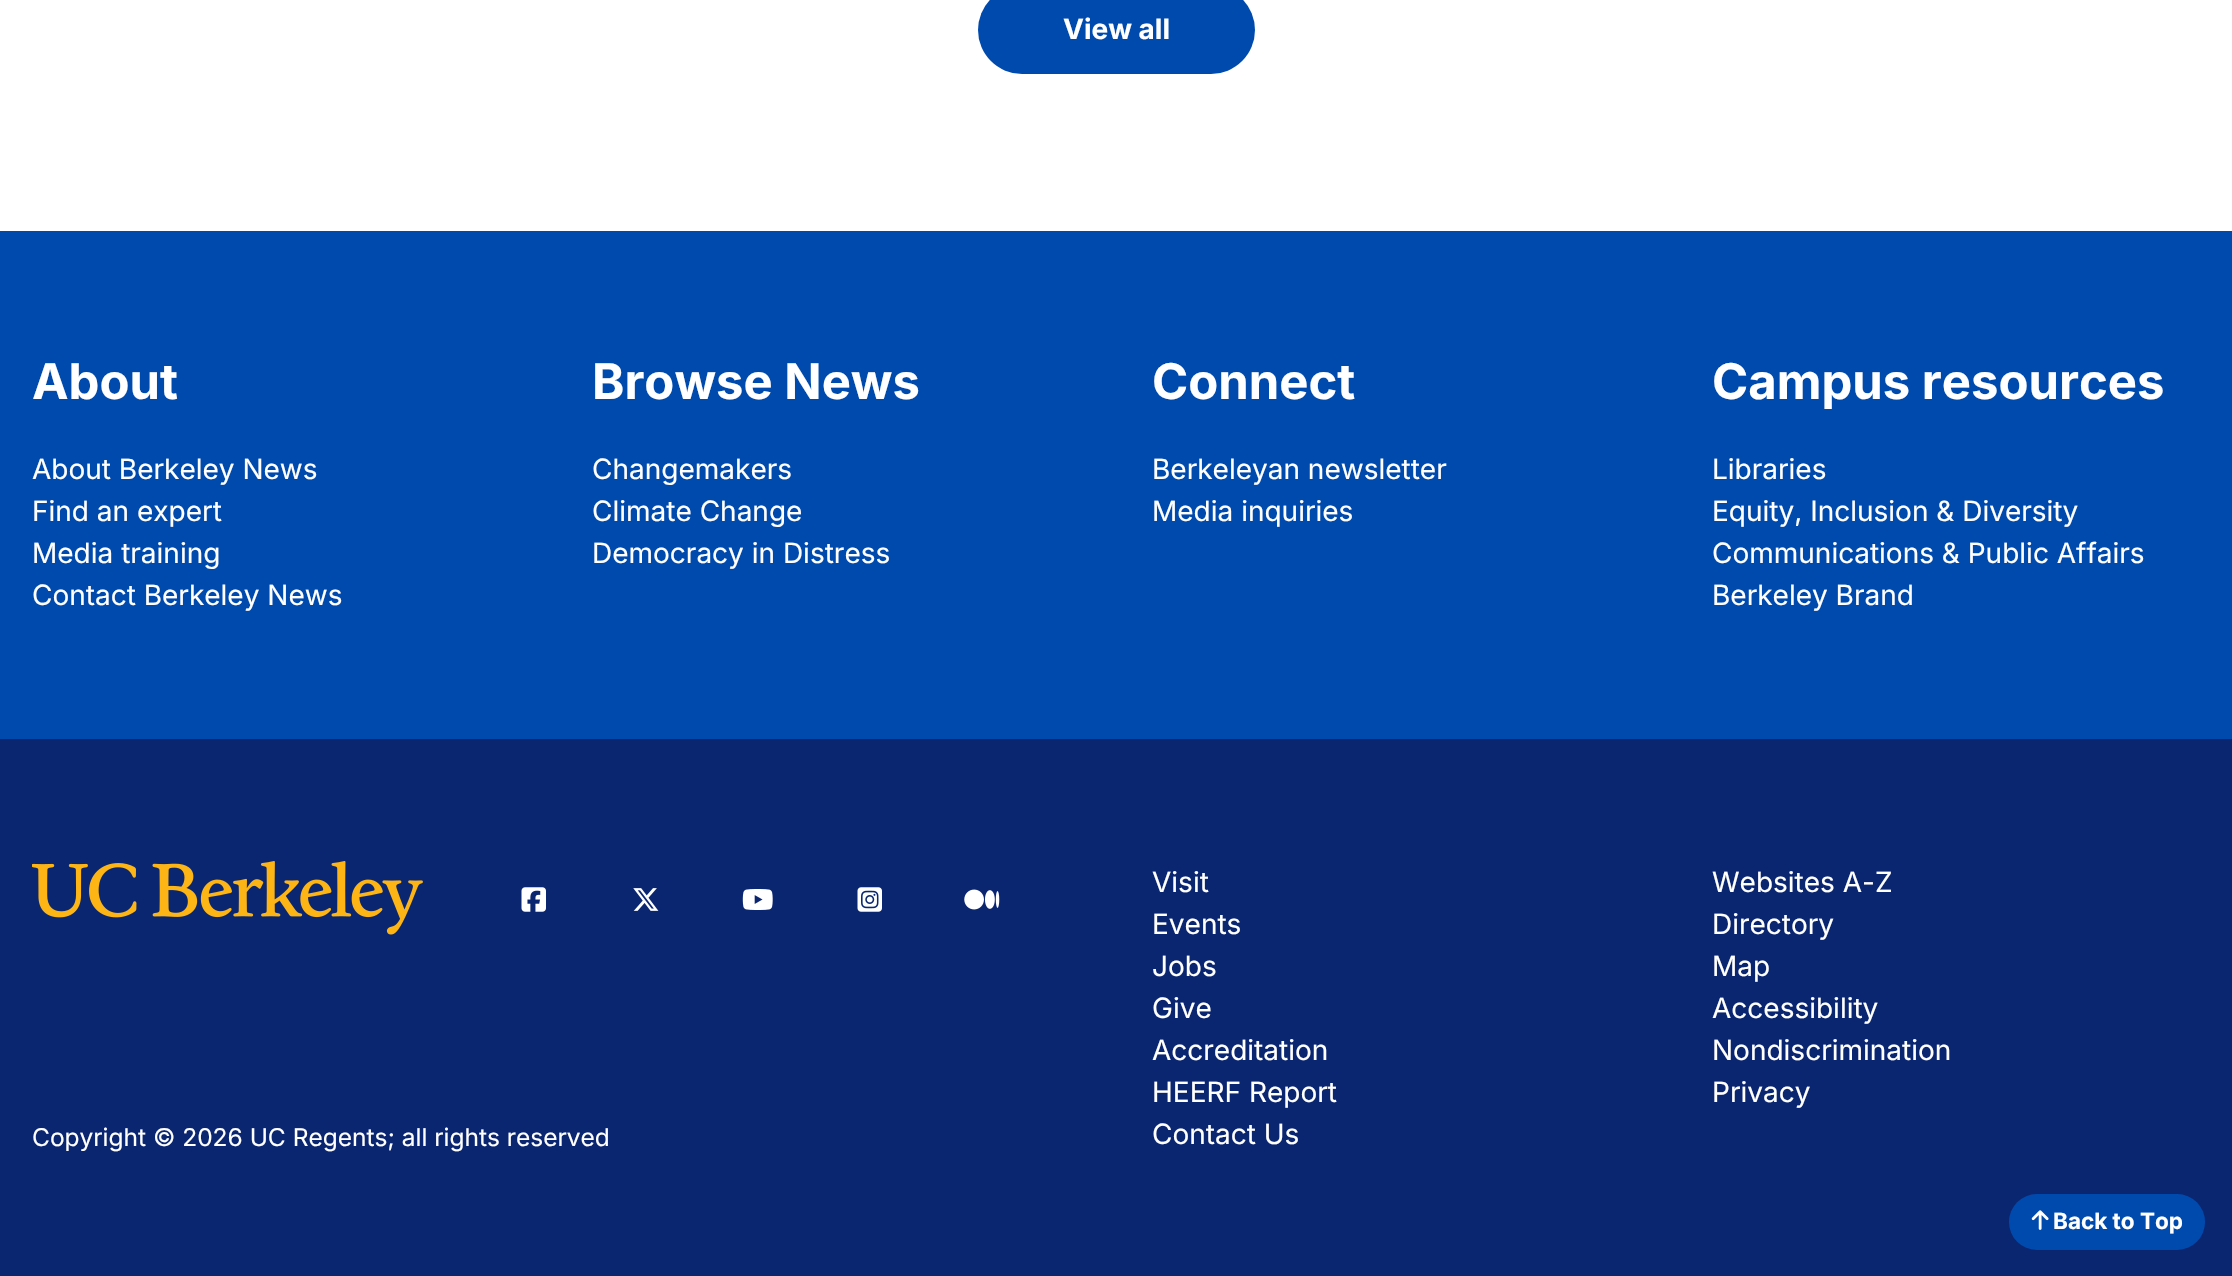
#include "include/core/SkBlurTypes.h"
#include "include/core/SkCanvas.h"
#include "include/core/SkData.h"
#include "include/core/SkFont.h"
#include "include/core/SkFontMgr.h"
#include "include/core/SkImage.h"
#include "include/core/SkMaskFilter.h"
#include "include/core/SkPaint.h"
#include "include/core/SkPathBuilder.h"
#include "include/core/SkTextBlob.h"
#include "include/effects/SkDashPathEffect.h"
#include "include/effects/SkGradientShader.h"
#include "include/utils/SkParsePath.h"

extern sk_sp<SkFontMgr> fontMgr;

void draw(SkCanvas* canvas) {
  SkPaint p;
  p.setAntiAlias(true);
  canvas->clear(SK_ColorWHITE);
  p.setColor(SkColorSetRGB(0, 74, 174));
  canvas->drawRoundRect(SkRect::MakeLTRB(978, -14, 1255, 74), 44, 44, p);
  p.setColor(SkColorSetRGB(11, 38, 113));
  canvas->drawRect(SkRect::MakeLTRB(0, 739, 2232, 1276), p);
  p.setColor(SkColorSetRGB(0, 74, 174));
  canvas->drawRect(SkRect::MakeLTRB(0, 231, 2232, 739), p);
  canvas->drawImageRect(SkImages::DeferredFromEncodedData(SkData::MakeFromFileName("images/1.png")), SkRect::MakeLTRB(32, 861, 423, 935), SkSamplingOptions());
  canvas->drawImageRect(SkImages::DeferredFromEncodedData(SkData::MakeFromFileName("images/2.png")), SkRect::MakeLTRB(521, 887, 546, 912), SkSamplingOptions());
  canvas->drawImageRect(SkImages::DeferredFromEncodedData(SkData::MakeFromFileName("images/3.png")), SkRect::MakeLTRB(633, 888, 659, 911), SkSamplingOptions());
  canvas->drawImageRect(SkImages::DeferredFromEncodedData(SkData::MakeFromFileName("images/4.png")), SkRect::MakeLTRB(742, 889, 773, 910), SkSamplingOptions());
  canvas->drawImageRect(SkImages::DeferredFromEncodedData(SkData::MakeFromFileName("images/5.png")), SkRect::MakeLTRB(857, 887, 882, 912), SkSamplingOptions());
  canvas->drawImageRect(SkImages::DeferredFromEncodedData(SkData::MakeFromFileName("images/6.png")), SkRect::MakeLTRB(964, 889, 1000, 910), SkSamplingOptions());
  canvas->drawRoundRect(SkRect::MakeLTRB(2009, 1194, 2205, 1250), 28, 28, p);
  canvas->drawImageRect(SkImages::DeferredFromEncodedData(SkData::MakeFromFileName("images/7.png")), SkRect::MakeLTRB(2031, 1210, 2049, 1230), SkSamplingOptions());
  SkFont font1(fontMgr->matchFamilyStyle("Inter", SkFontStyle::Bold()), 28);
  font1.setSubpixel(true);
  p.setColor(SK_ColorWHITE);
  canvas->drawString("View all", 1063, 39, font1, p);
  SkFont font2(fontMgr->matchFamilyStyle("Inter", SkFontStyle::Bold()), 49);
  font2.setSubpixel(true);
  canvas->drawString("About", 32, 399, font2, p);
  SkFont font3(fontMgr->matchFamilyStyle("Inter", SkFontStyle::Normal()), 28);
  font3.setSubpixel(true);
  canvas->drawString("About Berkeley News", 32, 479, font3, p);
  canvas->drawString("Find an expert", 32, 521, font3, p);
  canvas->drawString("Media training", 32, 563, font3, p);
  canvas->drawString("Contact Berkeley News", 32, 605, font3, p);
  canvas->drawString("Browse News", 592, 399, font2, p);
  canvas->drawString("Changemakers", 592, 479, font3, p);
  canvas->drawString("Climate Change", 592, 521, font3, p);
  canvas->drawString("Democracy in Distress", 592, 563, font3, p);
  canvas->drawString("Connect", 1152, 399, font2, p);
  canvas->drawString("Berkeleyan newsletter", 1152, 479, font3, p);
  canvas->drawString("Media inquiries", 1152, 521, font3, p);
  canvas->drawString("Campus resources", 1712, 399, font2, p);
  canvas->drawString("Libraries", 1712, 479, font3, p);
  canvas->drawString("Equity, Inclusion & Diversity", 1712, 521, font3, p);
  canvas->drawString("Communications & Public Affairs", 1712, 563, font3, p);
  canvas->drawString("Berkeley Brand", 1712, 605, font3, p);
  SkFont font4(fontMgr->matchFamilyStyle("Inter", SkFontStyle::Normal()), 24.5f);
  font4.setSubpixel(true);
  canvas->drawString("Copyright © 2026 UC Regents; all rights reserved", 32, 1146, font4, p);
  canvas->drawString("Visit", 1152, 892, font3, p);
  canvas->drawString("Websites A-Z", 1712, 892, font3, p);
  canvas->drawString("Events", 1152, 934, font3, p);
  canvas->drawString("Directory", 1712, 934, font3, p);
  canvas->drawString("Jobs", 1152, 976, font3, p);
  canvas->drawString("Map", 1712, 976, font3, p);
  canvas->drawString("Give", 1152, 1018, font3, p);
  canvas->drawString("Accessibility", 1712, 1018, font3, p);
  canvas->drawString("Accreditation", 1152, 1060, font3, p);
  canvas->drawString("Nondiscrimination", 1712, 1060, font3, p);
  canvas->drawString("HEERF Report", 1152, 1102, font3, p);
  canvas->drawString("Privacy", 1712, 1102, font3, p);
  canvas->drawString("Contact Us", 1152, 1144, font3, p);
  SkFont font5(fontMgr->matchFamilyStyle("Inter", SkFontStyle::Bold()), 22.5f);
  font5.setSubpixel(true);
  canvas->drawString("Back to Top", 2053, 1229, font5, p);
}
